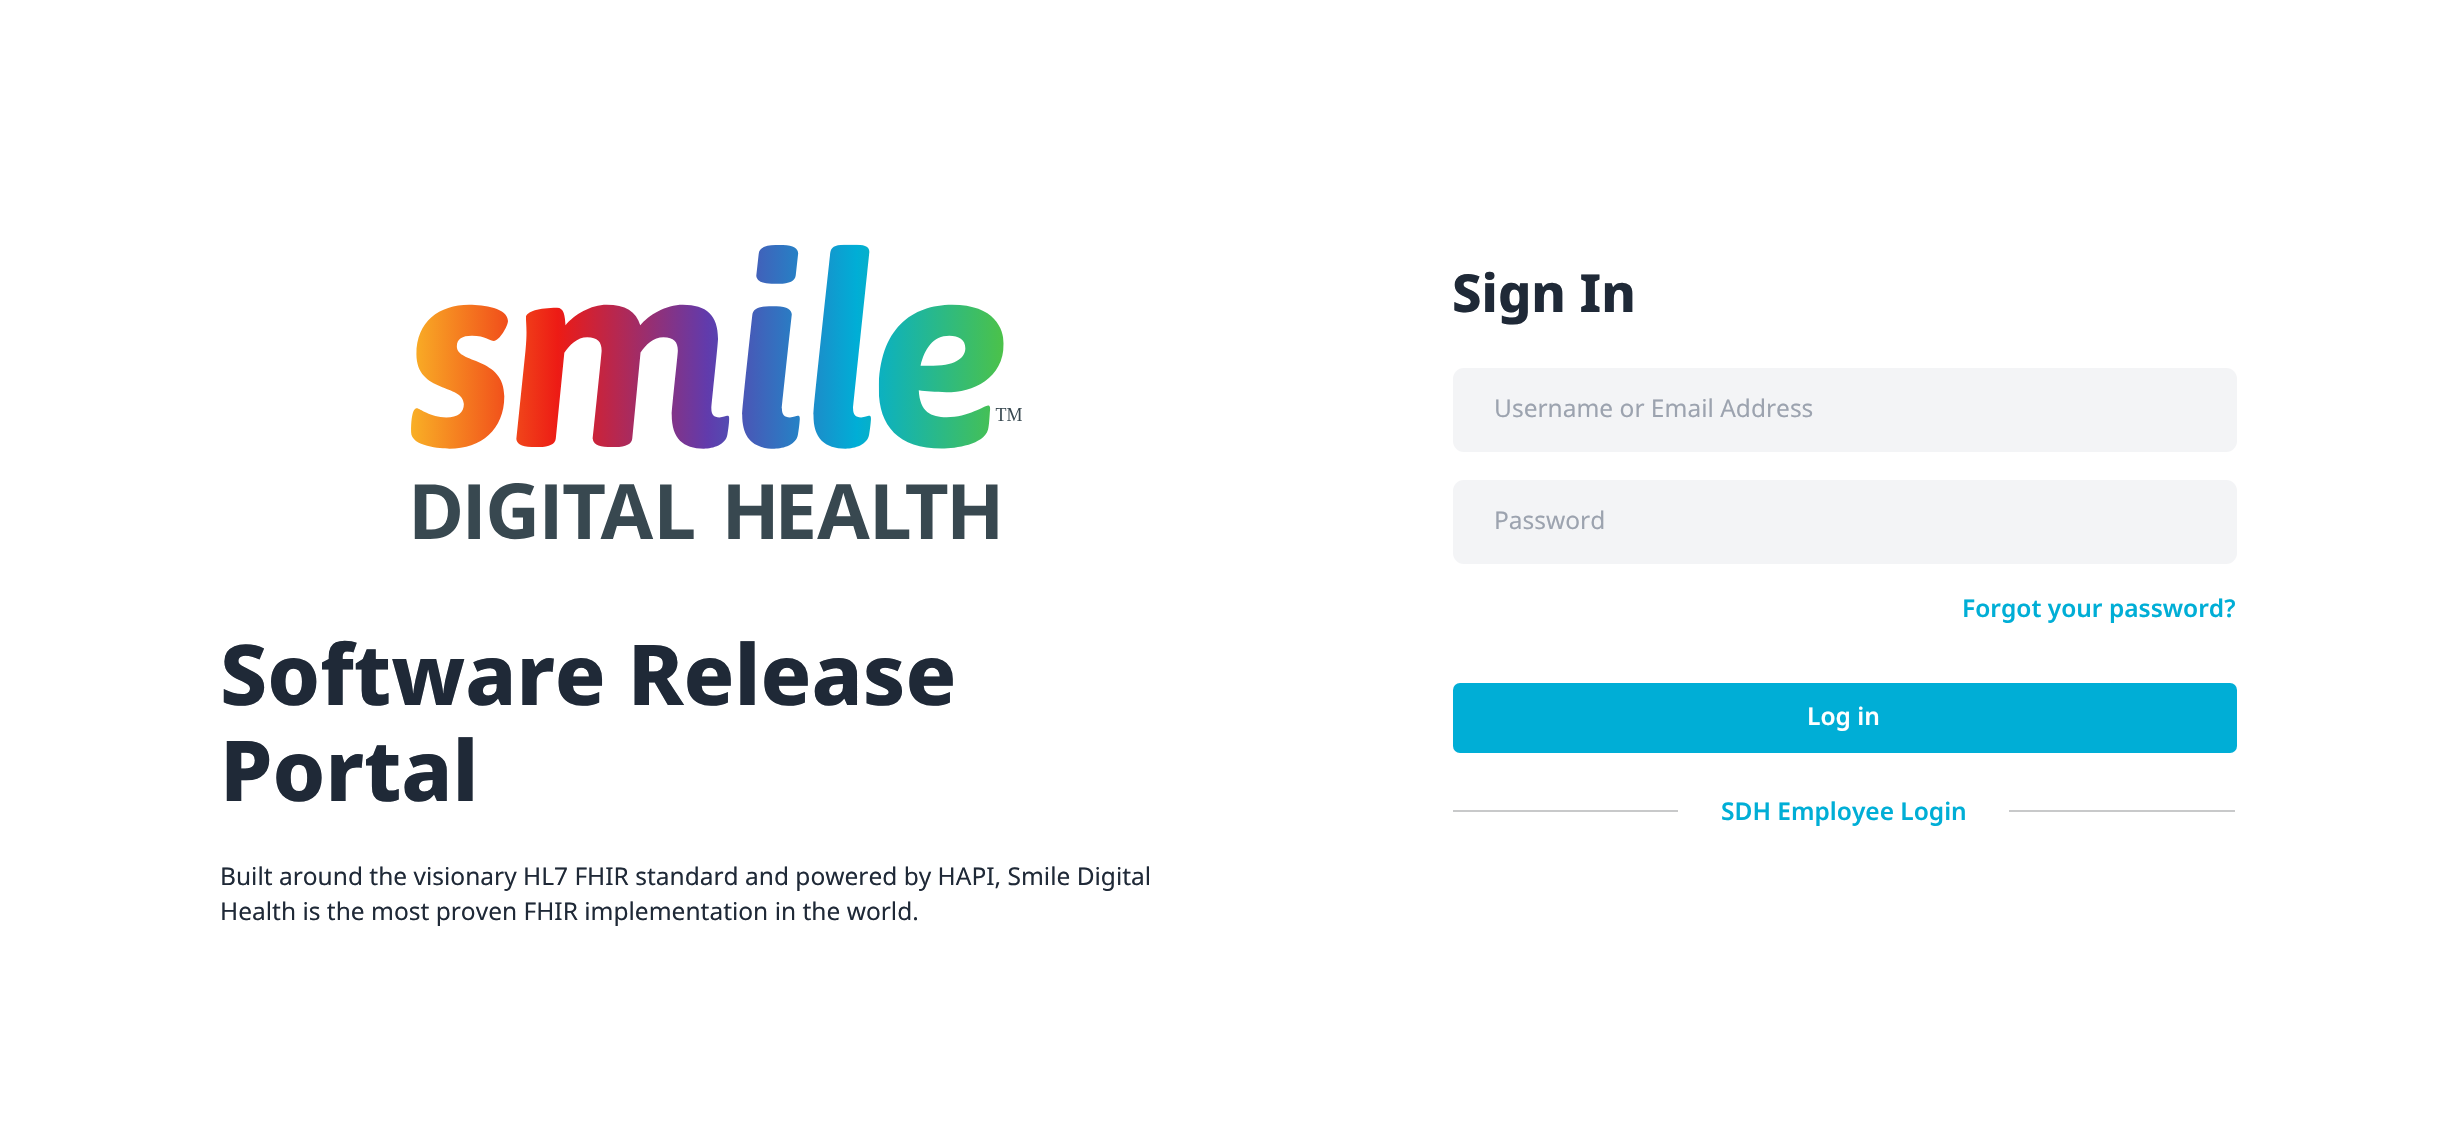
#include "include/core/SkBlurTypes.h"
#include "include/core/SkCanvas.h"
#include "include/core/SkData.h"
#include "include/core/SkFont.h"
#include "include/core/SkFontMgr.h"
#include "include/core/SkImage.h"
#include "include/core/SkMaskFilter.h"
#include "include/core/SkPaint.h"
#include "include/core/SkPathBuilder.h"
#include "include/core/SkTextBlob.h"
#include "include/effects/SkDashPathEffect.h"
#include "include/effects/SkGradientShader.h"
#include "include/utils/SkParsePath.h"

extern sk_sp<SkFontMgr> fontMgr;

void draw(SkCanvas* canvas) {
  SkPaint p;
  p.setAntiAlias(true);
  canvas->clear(SK_ColorWHITE);
  canvas->drawImageRect(SkImages::DeferredFromEncodedData(SkData::MakeFromFileName("images/1.png")), SkRect::MakeLTRB(411, 244, 1022, 540), SkSamplingOptions());
  p.setColor(SkColorSetRGB(243, 244, 246));
  canvas->drawRoundRect(SkRect::MakeLTRB(1453, 368, 2237, 452), 11, 11, p);
  canvas->drawRoundRect(SkRect::MakeLTRB(1453, 480, 2237, 564), 11, 11, p);
  p.setColor(SkColorSetRGB(0, 174, 214));
  canvas->drawRoundRect(SkRect::MakeLTRB(1453, 683, 2237, 753), 7, 7, p);
  p.setColor(SkColorSetRGB(200, 201, 202));
  canvas->drawRect(SkRect::MakeLTRB(1453, 810, 1678, 812), p);
  canvas->drawRect(SkRect::MakeLTRB(2009, 810, 2235, 812), p);
  SkFont font1(fontMgr->matchFamilyStyle("Noto Sans", SkFontStyle(800, SkFontStyle::kNormal_Width, SkFontStyle::kUpright_Slant)), 84);
  font1.setSubpixel(true);
  p.setColor(SkColorSetRGB(31, 41, 55));
  canvas->drawString("Software Release", 220, 705, font1, p);
  canvas->drawString("Portal", 220, 801, font1, p);
  SkFont font2(fontMgr->matchFamilyStyle("Noto Sans", SkFontStyle::Normal()), 24.5f);
  font2.setSubpixel(true);
  canvas->drawString("Built around the visionary HL7 FHIR standard and powered by HAPI, Smile Digital", 220, 885, font2, p);
  canvas->drawString("Health is the most proven FHIR implementation in the world.", 220, 920, font2, p);
  SkFont font3(fontMgr->matchFamilyStyle("Noto Sans", SkFontStyle(800, SkFontStyle::kNormal_Width, SkFontStyle::kUpright_Slant)), 52.5f);
  font3.setSubpixel(true);
  canvas->drawString("Sign In", 1452, 312, font3, p);
  p.setColor(SkColorSetRGB(156, 163, 175));
  canvas->drawString("Username or Email Address", 1494, 417, font2, p);
  canvas->drawString("Password", 1494, 529, font2, p);
  SkFont font4(fontMgr->matchFamilyStyle("Noto Sans", SkFontStyle(600, SkFontStyle::kNormal_Width, SkFontStyle::kUpright_Slant)), 24.5f);
  font4.setSubpixel(true);
  p.setColor(SkColorSetRGB(0, 174, 214));
  canvas->drawString("Forgot your password?", 1962, 617, font4, p);
  p.setColor(SK_ColorWHITE);
  canvas->drawString("Log in", 1807, 725, font4, p);
  p.setColor(SkColorSetRGB(0, 174, 214));
  canvas->drawString("SDH Employee Login", 1721, 820, font4, p);
}
